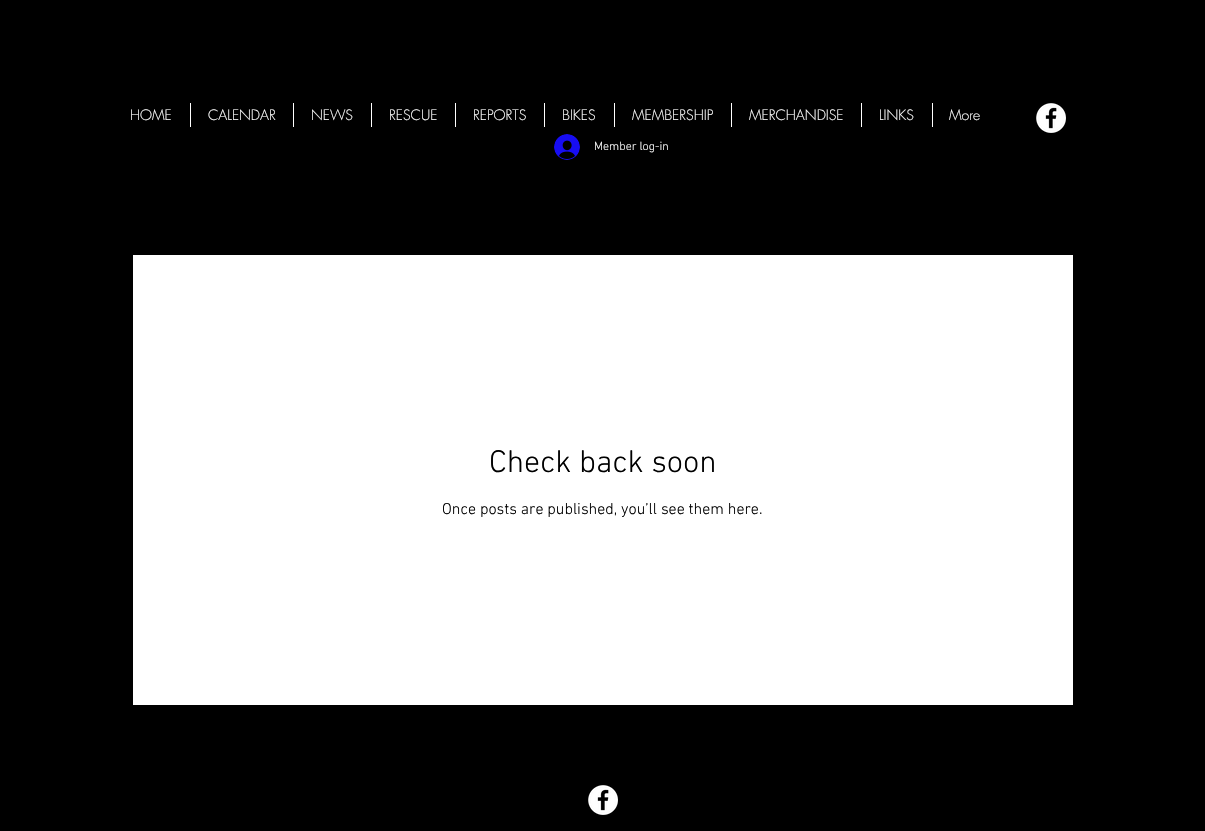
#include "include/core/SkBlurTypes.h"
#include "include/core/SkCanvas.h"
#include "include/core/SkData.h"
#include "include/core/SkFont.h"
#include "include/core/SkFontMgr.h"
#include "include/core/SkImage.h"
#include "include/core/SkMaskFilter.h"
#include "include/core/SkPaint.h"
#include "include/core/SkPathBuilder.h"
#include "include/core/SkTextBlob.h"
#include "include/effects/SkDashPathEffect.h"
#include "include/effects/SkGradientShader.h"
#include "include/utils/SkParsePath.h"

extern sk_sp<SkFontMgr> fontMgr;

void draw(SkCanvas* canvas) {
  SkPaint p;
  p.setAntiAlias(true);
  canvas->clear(SK_ColorBLACK);
  p.setColor(SK_ColorWHITE);
  canvas->drawRect(SkRect::MakeLTRB(190, 103, 191, 127), p);
  canvas->drawRect(SkRect::MakeLTRB(293, 103, 294, 127), p);
  canvas->drawRect(SkRect::MakeLTRB(371, 103, 372, 127), p);
  canvas->drawRect(SkRect::MakeLTRB(455, 103, 456, 127), p);
  canvas->drawRect(SkRect::MakeLTRB(544, 103, 545, 127), p);
  canvas->drawRect(SkRect::MakeLTRB(614, 103, 615, 127), p);
  canvas->drawRect(SkRect::MakeLTRB(731, 103, 732, 127), p);
  canvas->drawRect(SkRect::MakeLTRB(861, 103, 862, 127), p);
  canvas->drawRect(SkRect::MakeLTRB(932, 103, 933, 127), p);
  canvas->drawImageRect(SkImages::DeferredFromEncodedData(SkData::MakeFromFileName("images/1.png")), SkRect::MakeLTRB(1036, 103, 1066, 133), SkSamplingOptions());
  canvas->drawImageRect(SkImages::DeferredFromEncodedData(SkData::MakeFromFileName("images/2.png")), SkRect::MakeLTRB(554, 134, 580, 160), SkSamplingOptions());
  canvas->drawRect(SkRect::MakeLTRB(133, 255, 1073, 705), p);
  canvas->drawImageRect(SkImages::DeferredFromEncodedData(SkData::MakeFromFileName("images/1.png")), SkRect::MakeLTRB(588, 785, 618, 815), SkSamplingOptions());
  SkFont font1(fontMgr->matchFamilyStyle("futura", SkFontStyle(300, SkFontStyle::kNormal_Width, SkFontStyle::kUpright_Slant)), 14);
  font1.setSubpixel(true);
  canvas->drawString("HOME", 130, 120, font1, p);
  canvas->drawString("CALENDAR", 208, 120, font1, p);
  canvas->drawString("NEWS", 311, 120, font1, p);
  canvas->drawString("RESCUE", 389, 120, font1, p);
  canvas->drawString("REPORTS", 473, 120, font1, p);
  canvas->drawString("BIKES", 562, 120, font1, p);
  canvas->drawString("MEMBERSHIP", 632, 120, font1, p);
  canvas->drawString("MERCHANDISE", 749, 120, font1, p);
  canvas->drawString("LINKS", 879, 120, font1, p);
  canvas->drawString("More", 949, 120, font1, p);
  SkFont font2(fontMgr->matchFamilyStyle("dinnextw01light", SkFontStyle(300, SkFontStyle::kNormal_Width, SkFontStyle::kUpright_Slant)), 12);
  font2.setSubpixel(true);
  canvas->drawString("Member log-in", 594, 150, font2, p);
  SkFont font3(fontMgr->matchFamilyStyle("dinnextw01light", SkFontStyle(300, SkFontStyle::kNormal_Width, SkFontStyle::kUpright_Slant)), 32);
  font3.setSubpixel(true);
  p.setColor(SK_ColorBLACK);
  canvas->drawString("Check back soon", 489, 472, font3, p);
  SkFont font4(fontMgr->matchFamilyStyle("dinnextw01light", SkFontStyle(300, SkFontStyle::kNormal_Width, SkFontStyle::kUpright_Slant)), 16);
  font4.setSubpixel(true);
  canvas->drawString("Once posts are published, you’ll see them here.", 442, 514, font4, p);
}
